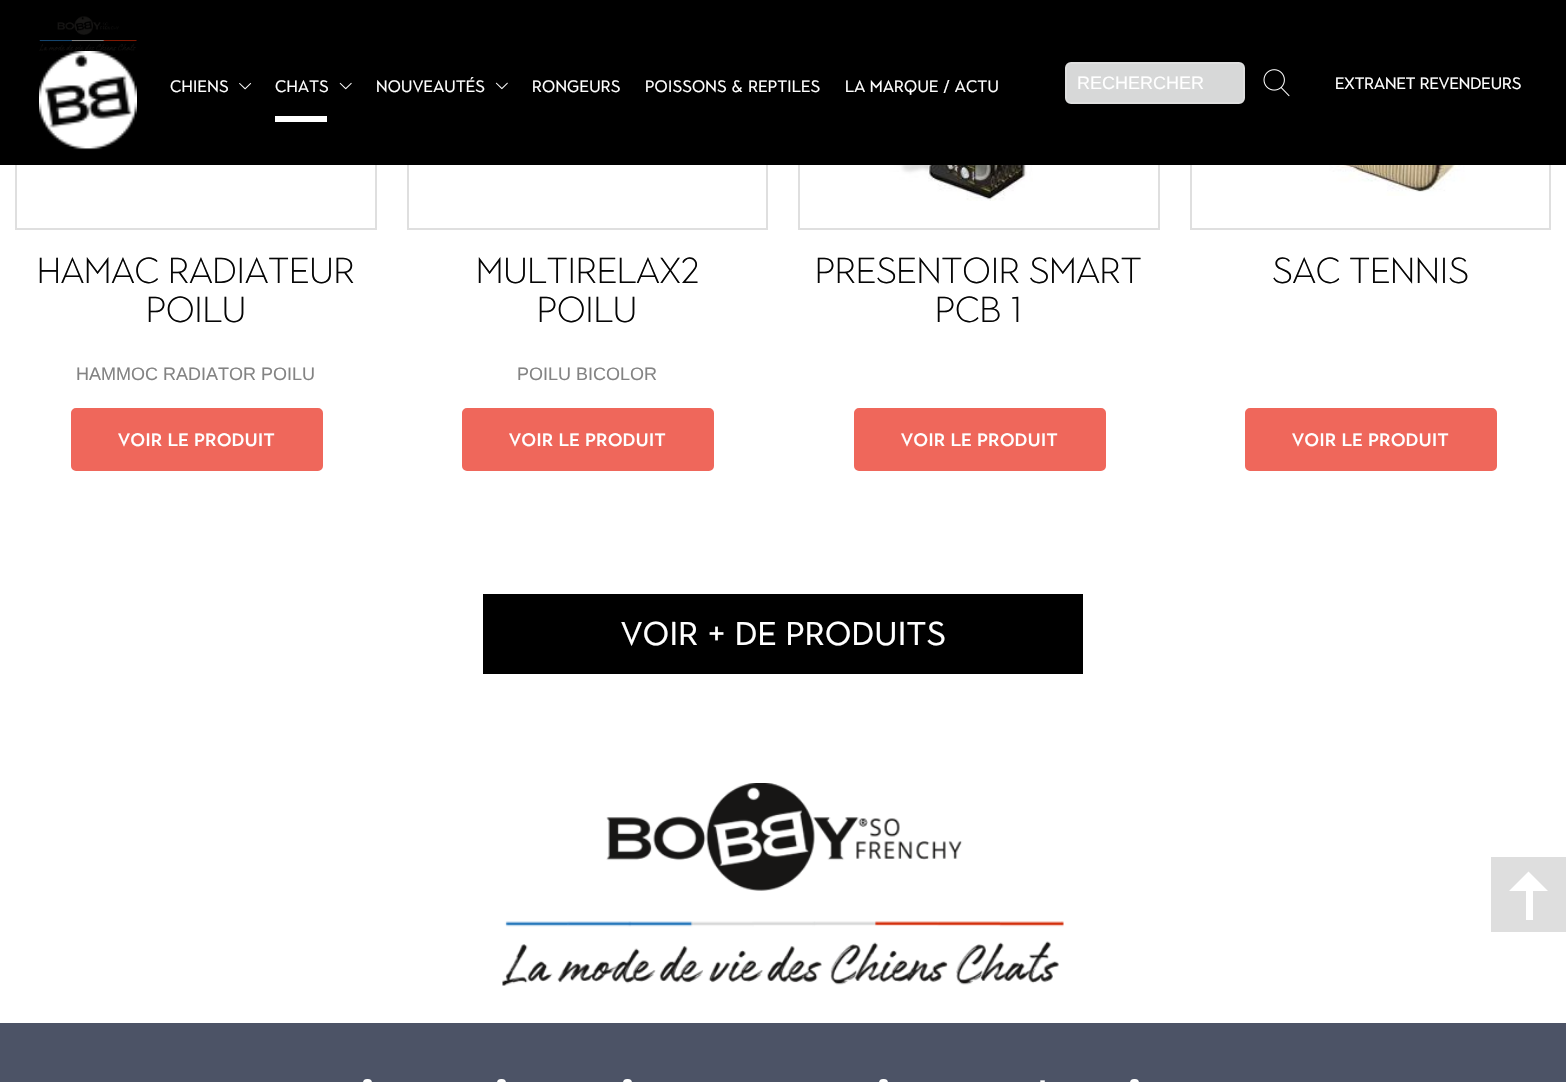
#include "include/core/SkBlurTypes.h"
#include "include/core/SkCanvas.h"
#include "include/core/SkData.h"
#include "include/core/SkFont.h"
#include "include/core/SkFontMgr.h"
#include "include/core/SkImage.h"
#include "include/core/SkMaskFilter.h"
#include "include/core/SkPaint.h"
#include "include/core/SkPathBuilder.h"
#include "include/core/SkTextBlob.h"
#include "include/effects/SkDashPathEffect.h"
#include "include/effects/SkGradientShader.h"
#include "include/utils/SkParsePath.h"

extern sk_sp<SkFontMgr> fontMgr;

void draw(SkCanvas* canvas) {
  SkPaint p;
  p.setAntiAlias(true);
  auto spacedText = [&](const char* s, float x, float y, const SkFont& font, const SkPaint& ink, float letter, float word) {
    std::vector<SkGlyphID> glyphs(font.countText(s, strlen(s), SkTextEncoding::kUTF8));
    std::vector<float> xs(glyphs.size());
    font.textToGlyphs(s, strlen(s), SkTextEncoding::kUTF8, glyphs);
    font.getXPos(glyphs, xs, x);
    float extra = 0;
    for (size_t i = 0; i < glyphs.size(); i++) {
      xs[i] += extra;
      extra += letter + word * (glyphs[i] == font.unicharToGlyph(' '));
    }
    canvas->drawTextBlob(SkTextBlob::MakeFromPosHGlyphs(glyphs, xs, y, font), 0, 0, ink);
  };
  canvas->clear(SK_ColorWHITE);
  p.setStyle(SkPaint::kStroke_Style);
  p.setStrokeWidth(2);
  p.setColor(SkColorSetRGB(223, 223, 223));
  canvas->drawRect(SkRect::MakeLTRB(16, -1, 376, 229), p);
  canvas->drawRect(SkRect::MakeLTRB(408, -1, 767, 229), p);
  canvas->drawRect(SkRect::MakeLTRB(799, -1, 1159, 229), p);
  canvas->drawRect(SkRect::MakeLTRB(1191, -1, 1550, 229), p);
  p.setStyle(SkPaint::kFill_Style);
  p.setColor(SK_ColorBLACK);
  canvas->drawRect(SkRect::MakeLTRB(0, 0, 1566, 165), p);
  canvas->drawImageRect(SkImages::DeferredFromEncodedData(SkData::MakeFromFileName("images/1.png")), SkRect::MakeLTRB(39, 16, 137, 51), SkSamplingOptions());
  canvas->drawImageRect(SkImages::DeferredFromEncodedData(SkData::MakeFromFileName("images/2.png")), SkRect::MakeLTRB(39, 51, 137, 150), SkSamplingOptions());
  p.setColor(SkColorSetRGB(215, 216, 216));
  canvas->drawRoundRect(SkRect::MakeLTRB(1066, 63, 1244, 103), 5, 5, p);
  p.setStyle(SkPaint::kStroke_Style);
  p.setColor(SkColorSetRGB(223, 223, 223));
  canvas->drawRoundRect(SkRect::MakeLTRB(1066, 63, 1244, 103), 5, 5, p);
  canvas->drawImageRect(SkImages::DeferredFromEncodedData(SkData::MakeFromFileName("images/3.png")), SkRect::MakeLTRB(1263, 69, 1290, 97), SkSamplingOptions());
  canvas->drawImageRect(SkImages::DeferredFromEncodedData(SkData::MakeFromFileName("images/4.png")), SkRect::MakeLTRB(239, 83, 252, 90), SkSamplingOptions());
  canvas->drawImageRect(SkImages::DeferredFromEncodedData(SkData::MakeFromFileName("images/5.png")), SkRect::MakeLTRB(339, 82, 352, 90), SkSamplingOptions());
  p.setStyle(SkPaint::kFill_Style);
  p.setColor(SK_ColorWHITE);
  canvas->drawRect(SkRect::MakeLTRB(275, 116, 327, 122), p);
  canvas->drawImageRect(SkImages::DeferredFromEncodedData(SkData::MakeFromFileName("images/6.png")), SkRect::MakeLTRB(495, 82, 508, 90), SkSamplingOptions());
  p.setColor(SkColorSetRGB(239, 103, 91));
  canvas->drawRoundRect(SkRect::MakeLTRB(72.5f, 409.5f, 321.5f, 469.5f), 3.5f, 3.5f, p);
  p.setStyle(SkPaint::kStroke_Style);
  p.setStrokeWidth(3);
  canvas->drawRoundRect(SkRect::MakeLTRB(72.5f, 409.5f, 321.5f, 469.5f), 3.5f, 3.5f, p);
  p.setStyle(SkPaint::kFill_Style);
  canvas->drawRoundRect(SkRect::MakeLTRB(463.5f, 409.5f, 712.5f, 469.5f), 3.5f, 3.5f, p);
  p.setStyle(SkPaint::kStroke_Style);
  canvas->drawRoundRect(SkRect::MakeLTRB(463.5f, 409.5f, 712.5f, 469.5f), 3.5f, 3.5f, p);
  canvas->drawImageRect(SkImages::DeferredFromEncodedData(SkData::MakeFromFileName("images/7.png")), SkRect::MakeLTRB(859, 165, 1033, 201), SkSamplingOptions());
  p.setStyle(SkPaint::kFill_Style);
  canvas->drawRoundRect(SkRect::MakeLTRB(855.5f, 409.5f, 1104.5f, 469.5f), 3.5f, 3.5f, p);
  p.setStyle(SkPaint::kStroke_Style);
  canvas->drawRoundRect(SkRect::MakeLTRB(855.5f, 409.5f, 1104.5f, 469.5f), 3.5f, 3.5f, p);
  canvas->drawImageRect(SkImages::DeferredFromEncodedData(SkData::MakeFromFileName("images/8.png")), SkRect::MakeLTRB(1214, 165, 1503, 196), SkSamplingOptions());
  p.setStyle(SkPaint::kFill_Style);
  canvas->drawRoundRect(SkRect::MakeLTRB(1246.5f, 409.5f, 1495.5f, 469.5f), 3.5f, 3.5f, p);
  p.setStyle(SkPaint::kStroke_Style);
  canvas->drawRoundRect(SkRect::MakeLTRB(1246.5f, 409.5f, 1495.5f, 469.5f), 3.5f, 3.5f, p);
  p.setStyle(SkPaint::kFill_Style);
  p.setColor(SK_ColorBLACK);
  canvas->drawRect(SkRect::MakeLTRB(483, 594, 1083, 674), p);
  canvas->drawImageRect(SkImages::DeferredFromEncodedData(SkData::MakeFromFileName("images/9.png")), SkRect::MakeLTRB(502, 783, 1064, 986), SkSamplingOptions());
  p.setColor(SkColorSetRGB(222, 222, 222));
  canvas->drawRect(SkRect::MakeLTRB(1491, 857, 1566, 932), p);
  p.setColor(SK_ColorWHITE);
  canvas->drawRect(SkRect::MakeLTRB(1526, 888, 1533, 920), p);
  canvas->drawPath(SkPathBuilder().moveTo(1548, 891).lineTo(1509, 891).lineTo(1528.5f, 871.5f).close().detach(), p);
  p.setColor(SkColorSetRGB(76, 83, 102));
  canvas->drawRect(SkRect::MakeLTRB(0, 1023, 1566, 1082), p);
  p.setColor(SK_ColorWHITE);
  canvas->drawRoundRect(SkRect::MakeLTRB(363, 1079, 372, 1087), 4.5f, 4.5f, p);
  canvas->drawRoundRect(SkRect::MakeLTRB(497, 1079, 506, 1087), 4.5f, 4.5f, p);
  canvas->drawRoundRect(SkRect::MakeLTRB(623, 1079, 632, 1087), 4.5f, 4.5f, p);
  canvas->drawRoundRect(SkRect::MakeLTRB(879, 1079, 888, 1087), 4.5f, 4.5f, p);
  canvas->drawRoundRect(SkRect::MakeLTRB(1130, 1079, 1139, 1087), 4.5f, 4.5f, p);
  SkFont font1(fontMgr->matchFamilyStyle("Liberation Sans", SkFontStyle::Normal()), 18);
  font1.setSubpixel(true);
  canvas->drawString("RECHERCHER", 1077, 89, font1, p);
  SkFont font2(fontMgr->matchFamilyStyle("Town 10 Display", SkFontStyle::Normal()), 16.5f);
  font2.setSubpixel(true);
  spacedText("CHIENS", 170, 92, font2, p, 0.25f, 0);
  spacedText("CHATS", 275, 92, font2, p, 0.25f, 0);
  spacedText("NOUVEAUTÉS", 376, 92, font2, p, 0.25f, 0);
  spacedText("RONGEURS", 532, 92, font2, p, 0.25f, 0);
  spacedText("POISSONS & REPTILES", 645, 92, font2, p, 0.25f, 0);
  spacedText("LA MARQUE / ACTU", 845, 92, font2, p, 0.25f, 0);
  canvas->drawString("EXTRANET REVENDEURS", 1335, 89, font2, p);
  SkFont font3(fontMgr->matchFamilyStyle("Town 10 Display", SkFontStyle(300, SkFontStyle::kNormal_Width, SkFontStyle::kUpright_Slant)), 36);
  font3.setSubpixel(true);
  p.setColor(SkColorSetRGB(5, 5, 5));
  canvas->drawString("HAMAC RADIATEUR", 37, 283, font3, p);
  canvas->drawString("POILU", 146, 322, font3, p);
  p.setColor(SkColorSetRGB(131, 131, 131));
  canvas->drawString("HAMMOC RADIATOR POILU", 76, 380, font1, p);
  SkFont font4(fontMgr->matchFamilyStyle("Town 10 Display", SkFontStyle(500, SkFontStyle::kNormal_Width, SkFontStyle::kUpright_Slant)), 18);
  font4.setSubpixel(true);
  p.setColor(SK_ColorWHITE);
  spacedText("VOIR LE PRODUIT", 118, 446, font4, p, 0.5f, 0);
  p.setColor(SkColorSetRGB(5, 5, 5));
  canvas->drawString("MULTIRELAX2", 476, 283, font3, p);
  canvas->drawString("POILU", 537, 322, font3, p);
  p.setColor(SkColorSetRGB(131, 131, 131));
  canvas->drawString("POILU BICOLOR", 517, 380, font1, p);
  p.setColor(SK_ColorWHITE);
  spacedText("VOIR LE PRODUIT", 509, 446, font4, p, 0.5f, 0);
  p.setColor(SkColorSetRGB(5, 5, 5));
  canvas->drawString("PRESENTOIR SMART", 815, 283, font3, p);
  canvas->drawString("PCB 1", 935, 322, font3, p);
  p.setColor(SK_ColorWHITE);
  spacedText("VOIR LE PRODUIT", 901, 446, font4, p, 0.5f, 0);
  p.setColor(SkColorSetRGB(5, 5, 5));
  canvas->drawString("SAC TENNIS", 1272, 283, font3, p);
  p.setColor(SK_ColorWHITE);
  spacedText("VOIR LE PRODUIT", 1292, 446, font4, p, 0.5f, 0);
  SkFont font5(fontMgr->matchFamilyStyle("Town 10 Display", SkFontStyle::Normal()), 33);
  font5.setSubpixel(true);
  spacedText("VOIR + DE PRODUITS", 621, 645, font5, p, 0.5f, 0);
  SkFont font6(fontMgr->matchFamilyStyle("Town 10 Display", SkFontStyle::Normal()), 21);
  font6.setSubpixel(true);
  spacedText("-", 1040, 1088, font6, p, 1, 0);
}
